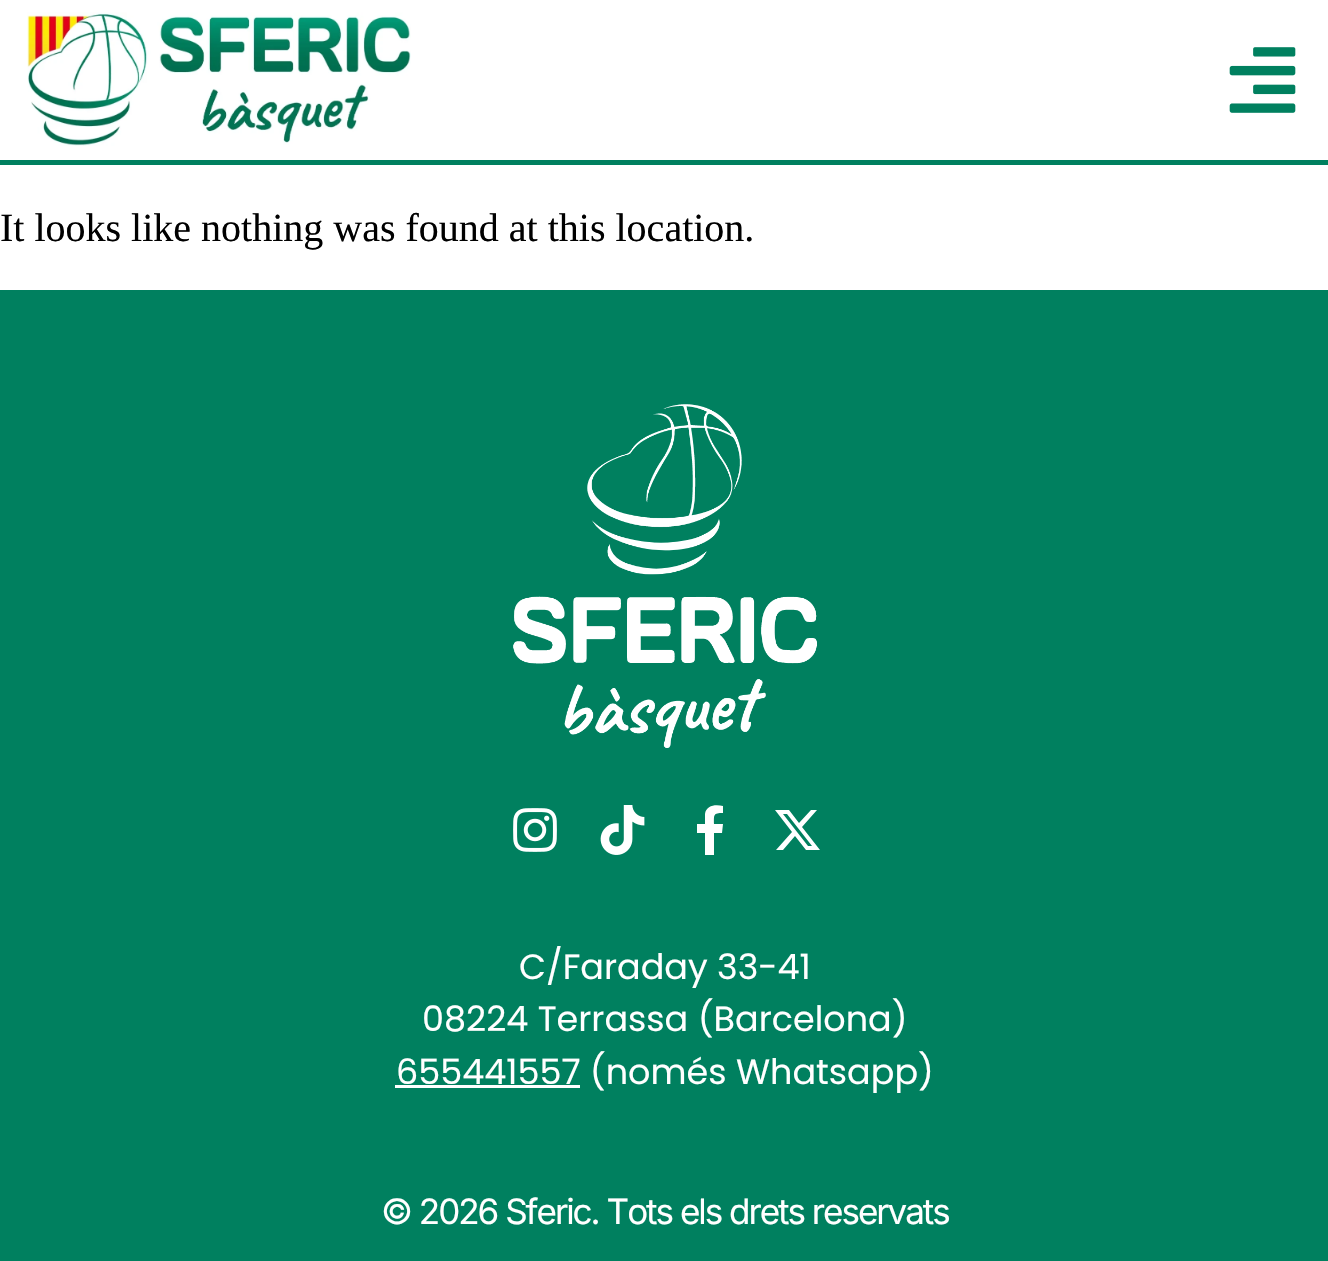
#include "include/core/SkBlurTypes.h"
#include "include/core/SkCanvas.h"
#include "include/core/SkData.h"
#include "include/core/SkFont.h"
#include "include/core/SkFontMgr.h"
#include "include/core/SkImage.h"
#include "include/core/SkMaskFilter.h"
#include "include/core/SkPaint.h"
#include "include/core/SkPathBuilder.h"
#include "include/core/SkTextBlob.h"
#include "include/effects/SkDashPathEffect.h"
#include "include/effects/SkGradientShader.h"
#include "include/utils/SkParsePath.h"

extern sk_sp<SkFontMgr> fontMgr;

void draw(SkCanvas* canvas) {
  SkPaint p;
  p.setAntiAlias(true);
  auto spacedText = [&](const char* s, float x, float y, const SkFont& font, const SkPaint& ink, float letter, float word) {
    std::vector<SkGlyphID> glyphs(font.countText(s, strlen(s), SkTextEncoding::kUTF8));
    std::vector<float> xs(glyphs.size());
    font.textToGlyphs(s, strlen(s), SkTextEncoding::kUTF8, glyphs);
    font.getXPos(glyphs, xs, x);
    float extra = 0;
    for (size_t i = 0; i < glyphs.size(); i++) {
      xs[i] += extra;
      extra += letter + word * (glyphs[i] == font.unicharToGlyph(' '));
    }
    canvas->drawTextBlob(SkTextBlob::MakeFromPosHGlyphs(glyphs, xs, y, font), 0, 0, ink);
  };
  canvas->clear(SK_ColorWHITE);
  p.setColor(SkColorSetRGB(0, 128, 95));
  canvas->drawRect(SkRect::MakeLTRB(0, 160, 1328, 165), p);
  canvas->drawImageRect(SkImages::DeferredFromEncodedData(SkData::MakeFromFileName("images/1.png")), SkRect::MakeLTRB(27, 12, 411, 146), SkSamplingOptions());
  canvas->drawImageRect(SkImages::DeferredFromEncodedData(SkData::MakeFromFileName("images/2.png")), SkRect::MakeLTRB(1229, 47, 1296, 113), SkSamplingOptions());
  canvas->drawRect(SkRect::MakeLTRB(0, 290, 1328, 1261), p);
  canvas->drawImageRect(SkImages::DeferredFromEncodedData(SkData::MakeFromFileName("images/3.png")), SkRect::MakeLTRB(513, 404, 817, 748), SkSamplingOptions());
  canvas->drawImageRect(SkImages::DeferredFromEncodedData(SkData::MakeFromFileName("images/4.png")), SkRect::MakeLTRB(513, 808, 557, 852), SkSamplingOptions());
  canvas->drawImageRect(SkImages::DeferredFromEncodedData(SkData::MakeFromFileName("images/5.png")), SkRect::MakeLTRB(600, 805, 645, 855), SkSamplingOptions());
  p.setColor(SK_ColorWHITE);
  canvas->drawPath(SkPathBuilder().moveTo(722, 833).lineTo(723, 824).lineTo(714, 824).cubicTo(714, 815, 713, 813, 723, 813).lineTo(723, 806).cubicTo(716, 804, 706, 805, 705, 814).lineTo(705, 824).lineTo(697, 824).lineTo(697, 833).lineTo(705, 833).lineTo(705, 855).lineTo(714, 855).lineTo(714, 833).close().detach(), p);
  canvas->drawPath(SkPathBuilder().moveTo(811, 810).lineTo(817, 810).lineTo(802, 827).lineTo(820, 850).lineTo(806, 850).lineTo(795, 836).lineTo(783, 850).lineTo(776, 850).lineTo(792, 832).lineTo(775, 810).lineTo(789, 810).lineTo(799, 823).close().moveTo(808, 846).lineTo(812, 846).lineTo(787, 814).lineTo(783, 814).close().detach(), p);
  canvas->drawRect(SkRect::MakeLTRB(395, 1085, 580, 1088), p);
  SkFont font1(fontMgr->matchFamilyStyle("Liberation Serif", SkFontStyle::Normal()), 40);
  font1.setSubpixel(true);
  p.setColor(SK_ColorBLACK);
  canvas->drawString("It looks like nothing was found at this location.", 0, 241, font1, p);
  SkFont font2(fontMgr->matchFamilyStyle("Poppins", SkFontStyle::Normal()), 35);
  font2.setSubpixel(true);
  p.setColor(SK_ColorWHITE);
  canvas->drawString("C/Faraday 33-41", 519, 979, font2, p);
  canvas->drawString("08224 Terrassa (Barcelona)", 422, 1031, font2, p);
  canvas->drawString("655441557 (només Whatsapp)", 396, 1084, font2, p);
  SkFont font3(fontMgr->matchFamilyStyle("Inter", SkFontStyle::Normal()), 35);
  font3.setSubpixel(true);
  spacedText("© 2026 Sferic. Tots els drets reservats", 381, 1224, font3, p, -2, 0);
}
